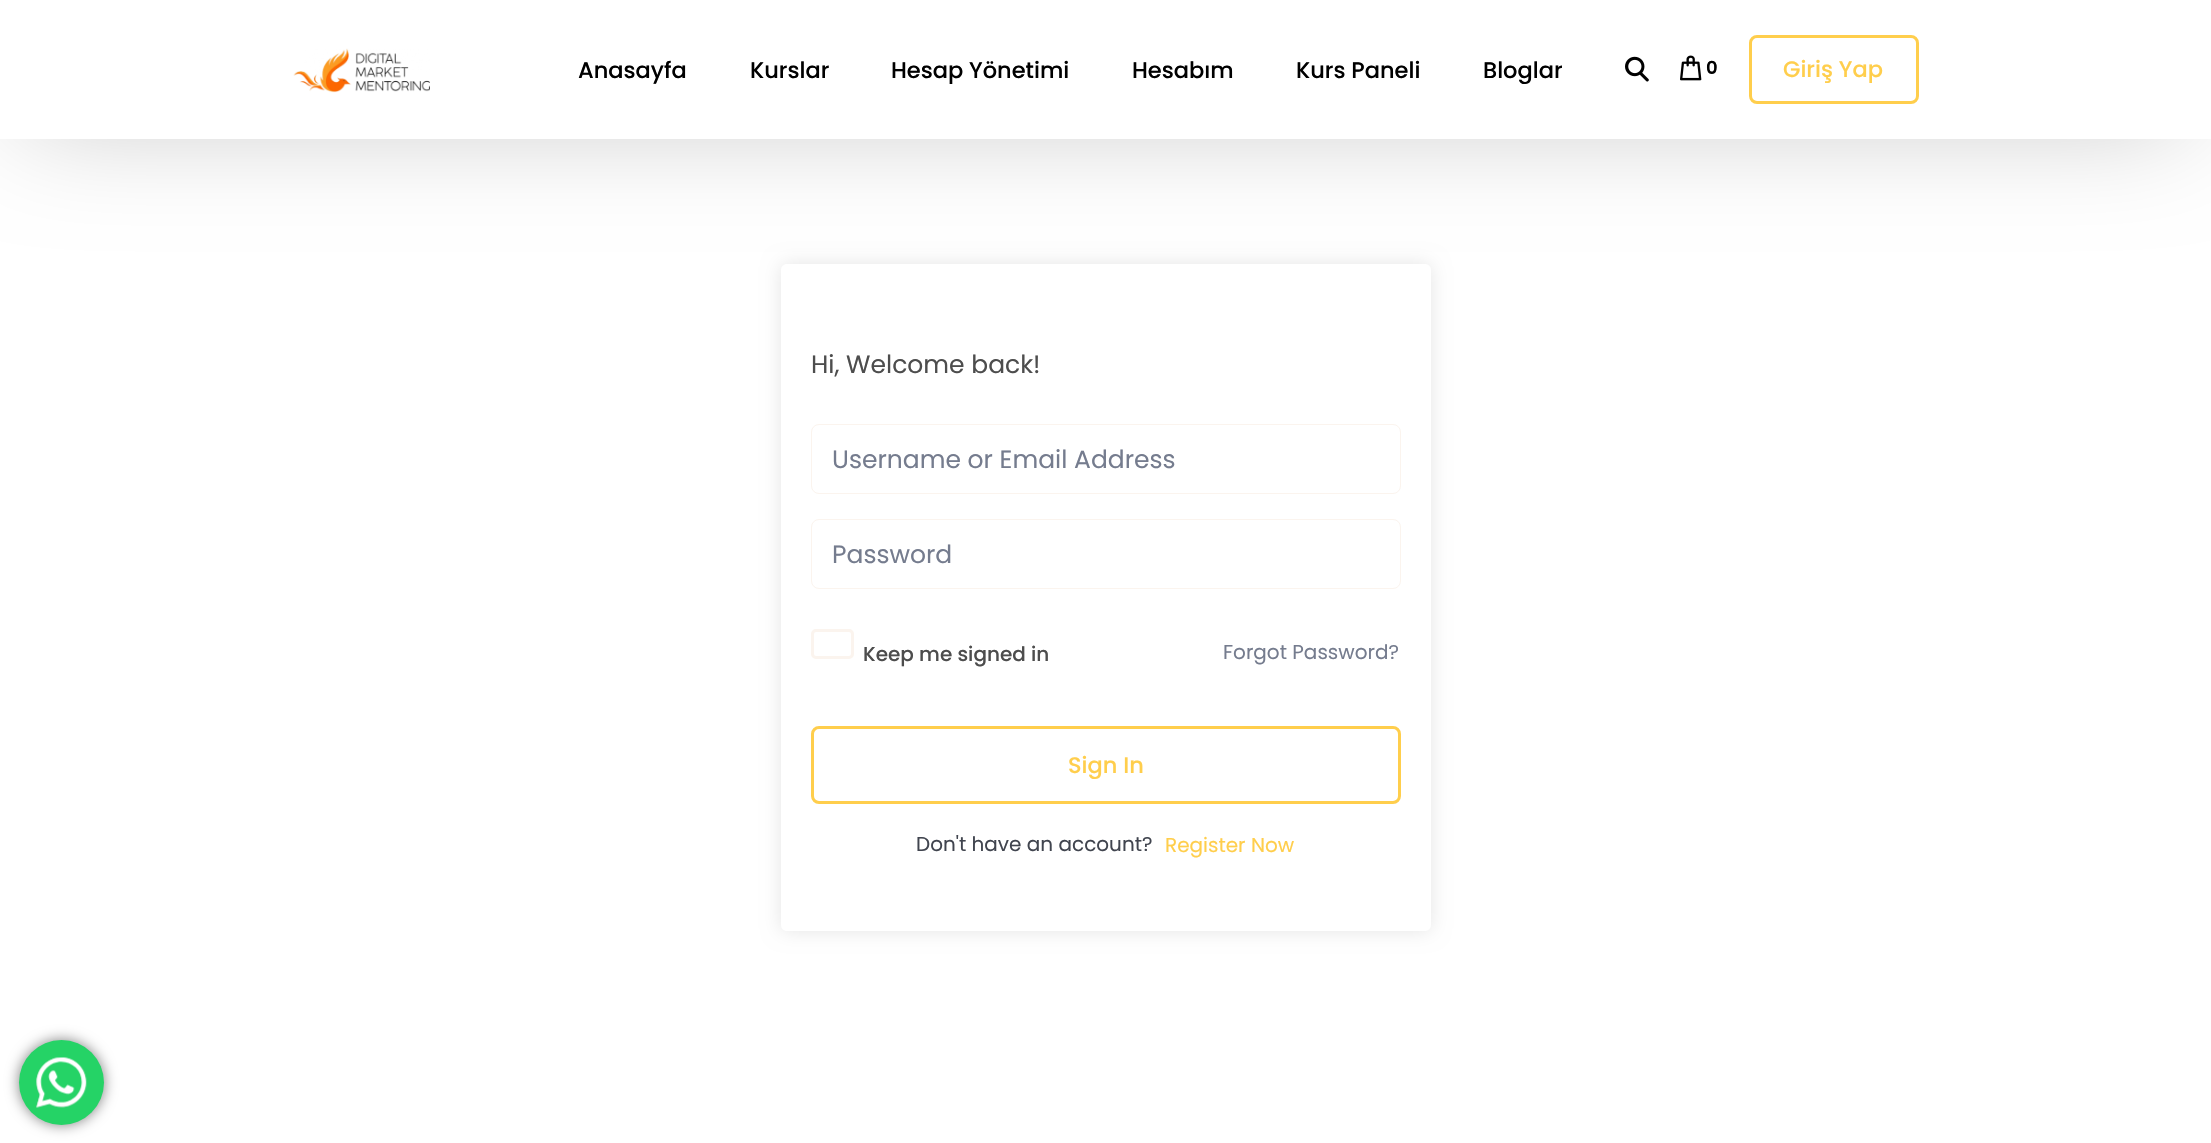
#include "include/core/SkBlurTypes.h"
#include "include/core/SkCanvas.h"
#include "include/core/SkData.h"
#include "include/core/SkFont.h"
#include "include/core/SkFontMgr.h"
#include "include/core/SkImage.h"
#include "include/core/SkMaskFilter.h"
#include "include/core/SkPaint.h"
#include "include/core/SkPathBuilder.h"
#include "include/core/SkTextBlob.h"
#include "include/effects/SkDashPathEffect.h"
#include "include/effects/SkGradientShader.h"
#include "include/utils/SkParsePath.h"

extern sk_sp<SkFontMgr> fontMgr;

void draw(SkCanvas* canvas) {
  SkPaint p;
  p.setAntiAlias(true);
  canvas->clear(SK_ColorWHITE);
  p.setColor(SkColorSetARGB(64, 0, 0, 0));
  p.setMaskFilter(SkMaskFilter::MakeBlur(kNormal_SkBlurStyle, 56));
  canvas->drawRect(SkRect::MakeLTRB(23, 29, 2184, 118), p);
  p.setMaskFilter(nullptr);
  p.setColor(SK_ColorWHITE);
  canvas->drawRect(SkRect::MakeLTRB(0, 0, 2211, 139), p);
  canvas->drawImageRect(SkImages::DeferredFromEncodedData(SkData::MakeFromFileName("images/1.png")), SkRect::MakeLTRB(293, 48, 430, 93), SkSamplingOptions());
  canvas->drawImageRect(SkImages::DeferredFromEncodedData(SkData::MakeFromFileName("images/2.png")), SkRect::MakeLTRB(1625, 56, 1649, 82), SkSamplingOptions());
  canvas->drawImageRect(SkImages::DeferredFromEncodedData(SkData::MakeFromFileName("images/3.png")), SkRect::MakeLTRB(1680, 55, 1702, 81), SkSamplingOptions());
  p.setStyle(SkPaint::kStroke_Style);
  p.setStrokeWidth(3);
  p.setColor(SkColorSetRGB(255, 206, 76));
  canvas->drawRoundRect(SkRect::MakeLTRB(1750.5f, 36.5f, 1917.5f, 102.5f), 6.5f, 6.5f, p);
  canvas->save();
  canvas->clipPath(SkPathBuilder(SkPathFillType::kEvenOdd).moveTo(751, 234).lineTo(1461, 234).lineTo(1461, 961).lineTo(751, 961).close().moveTo(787, 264).lineTo(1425, 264).cubicTo(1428.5f, 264, 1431, 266.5f, 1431, 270).lineTo(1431, 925).cubicTo(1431, 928.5f, 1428.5f, 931, 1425, 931).lineTo(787, 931).cubicTo(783.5f, 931, 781, 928.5f, 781, 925).lineTo(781, 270).cubicTo(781, 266.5f, 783.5f, 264, 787, 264).close().detach(), true);
  p.setStyle(SkPaint::kFill_Style);
  p.setColor(SkColorSetARGB(26, 0, 0, 0));
  p.setMaskFilter(SkMaskFilter::MakeBlur(kNormal_SkBlurStyle, 9.5f));
  canvas->drawRoundRect(SkRect::MakeLTRB(781, 264, 1431, 931), 6, 6, p);
  p.setMaskFilter(nullptr);
  canvas->restore();
  p.setStyle(SkPaint::kStroke_Style);
  p.setStrokeWidth(1);
  p.setColor(SkColorSetRGB(251, 244, 238));
  canvas->drawRoundRect(SkRect::MakeLTRB(811.5f, 424.5f, 1400.5f, 493.5f), 7.5f, 7.5f, p);
  canvas->drawRoundRect(SkRect::MakeLTRB(811.5f, 519.5f, 1400.5f, 588.5f), 7.5f, 7.5f, p);
  p.setStrokeWidth(3);
  canvas->drawRoundRect(SkRect::MakeLTRB(812.5f, 630.5f, 852.5f, 657.5f), 3.5f, 3.5f, p);
  p.setColor(SkColorSetRGB(255, 206, 76));
  canvas->drawRoundRect(SkRect::MakeLTRB(812.5f, 727.5f, 1399.5f, 802.5f), 6.5f, 6.5f, p);
  p.setStyle(SkPaint::kFill_Style);
  p.setColor(SkColorSetARGB(128, 0, 0, 0));
  p.setMaskFilter(SkMaskFilter::MakeBlur(kNormal_SkBlurStyle, 7));
  canvas->drawRoundRect(SkRect::MakeLTRB(19, 1040, 104, 1125), 42.5f, 42.5f, p);
  p.setMaskFilter(nullptr);
  p.setColor(SkColorSetRGB(37, 211, 102));
  canvas->drawCircle(61.5f, 1082.5f, 42.5f, p);
  canvas->drawImageRect(SkImages::DeferredFromEncodedData(SkData::MakeFromFileName("images/4.png")), SkRect::MakeLTRB(36, 1057, 87, 1108), SkSamplingOptions());
  SkFont font1(fontMgr->matchFamilyStyle("Poppins", SkFontStyle(500, SkFontStyle::kNormal_Width, SkFontStyle::kUpright_Slant)), 22.5f);
  font1.setSubpixel(true);
  p.setColor(SK_ColorBLACK);
  canvas->drawString("Anasayfa", 578, 78, font1, p);
  canvas->drawString("Kurslar", 750, 78, font1, p);
  canvas->drawString("Hesap Yönetimi", 891, 78, font1, p);
  canvas->drawString("Hesabım", 1132, 78, font1, p);
  canvas->drawString("Kurs Paneli", 1296, 78, font1, p);
  canvas->drawString("Bloglar", 1483, 78, font1, p);
  SkFont font2(fontMgr->matchFamilyStyle("Poppins", SkFontStyle(600, SkFontStyle::kNormal_Width, SkFontStyle::kUpright_Slant)), 18);
  font2.setSubpixel(true);
  canvas->drawString("0", 1706, 74, font2, p);
  p.setColor(SkColorSetRGB(255, 206, 76));
  canvas->drawString("Giriş Yap", 1783, 77, font1, p);
  SkFont font3(fontMgr->matchFamilyStyle("Poppins", SkFontStyle::Normal()), 25);
  font3.setSubpixel(true);
  p.setColor(SkColorSetRGB(77, 77, 77));
  canvas->drawString("Hi, Welcome back!", 811, 373, font3, p);
  p.setColor(SkColorSetRGB(117, 124, 142));
  canvas->drawString("Username or Email Address", 832, 468, font3, p);
  canvas->drawString("Password", 832, 563, font3, p);
  SkFont font4(fontMgr->matchFamilyStyle("Poppins", SkFontStyle(500, SkFontStyle::kNormal_Width, SkFontStyle::kUpright_Slant)), 20);
  font4.setSubpixel(true);
  p.setColor(SkColorSetRGB(77, 77, 77));
  canvas->drawString("Keep me signed in", 863, 661, font4, p);
  SkFont font5(fontMgr->matchFamilyStyle("Poppins", SkFontStyle::Normal()), 20);
  font5.setSubpixel(true);
  p.setColor(SkColorSetRGB(117, 124, 142));
  canvas->drawString("Forgot Password?", 1223, 659, font5, p);
  p.setColor(SkColorSetRGB(255, 206, 76));
  canvas->drawString("Sign In", 1068, 773, font1, p);
  p.setColor(SkColorSetRGB(65, 69, 79));
  canvas->drawString("Don't have an account?", 916, 851, font5, p);
  p.setColor(SkColorSetRGB(255, 206, 76));
  canvas->drawString("Register Now", 1165, 852, font5, p);
}
